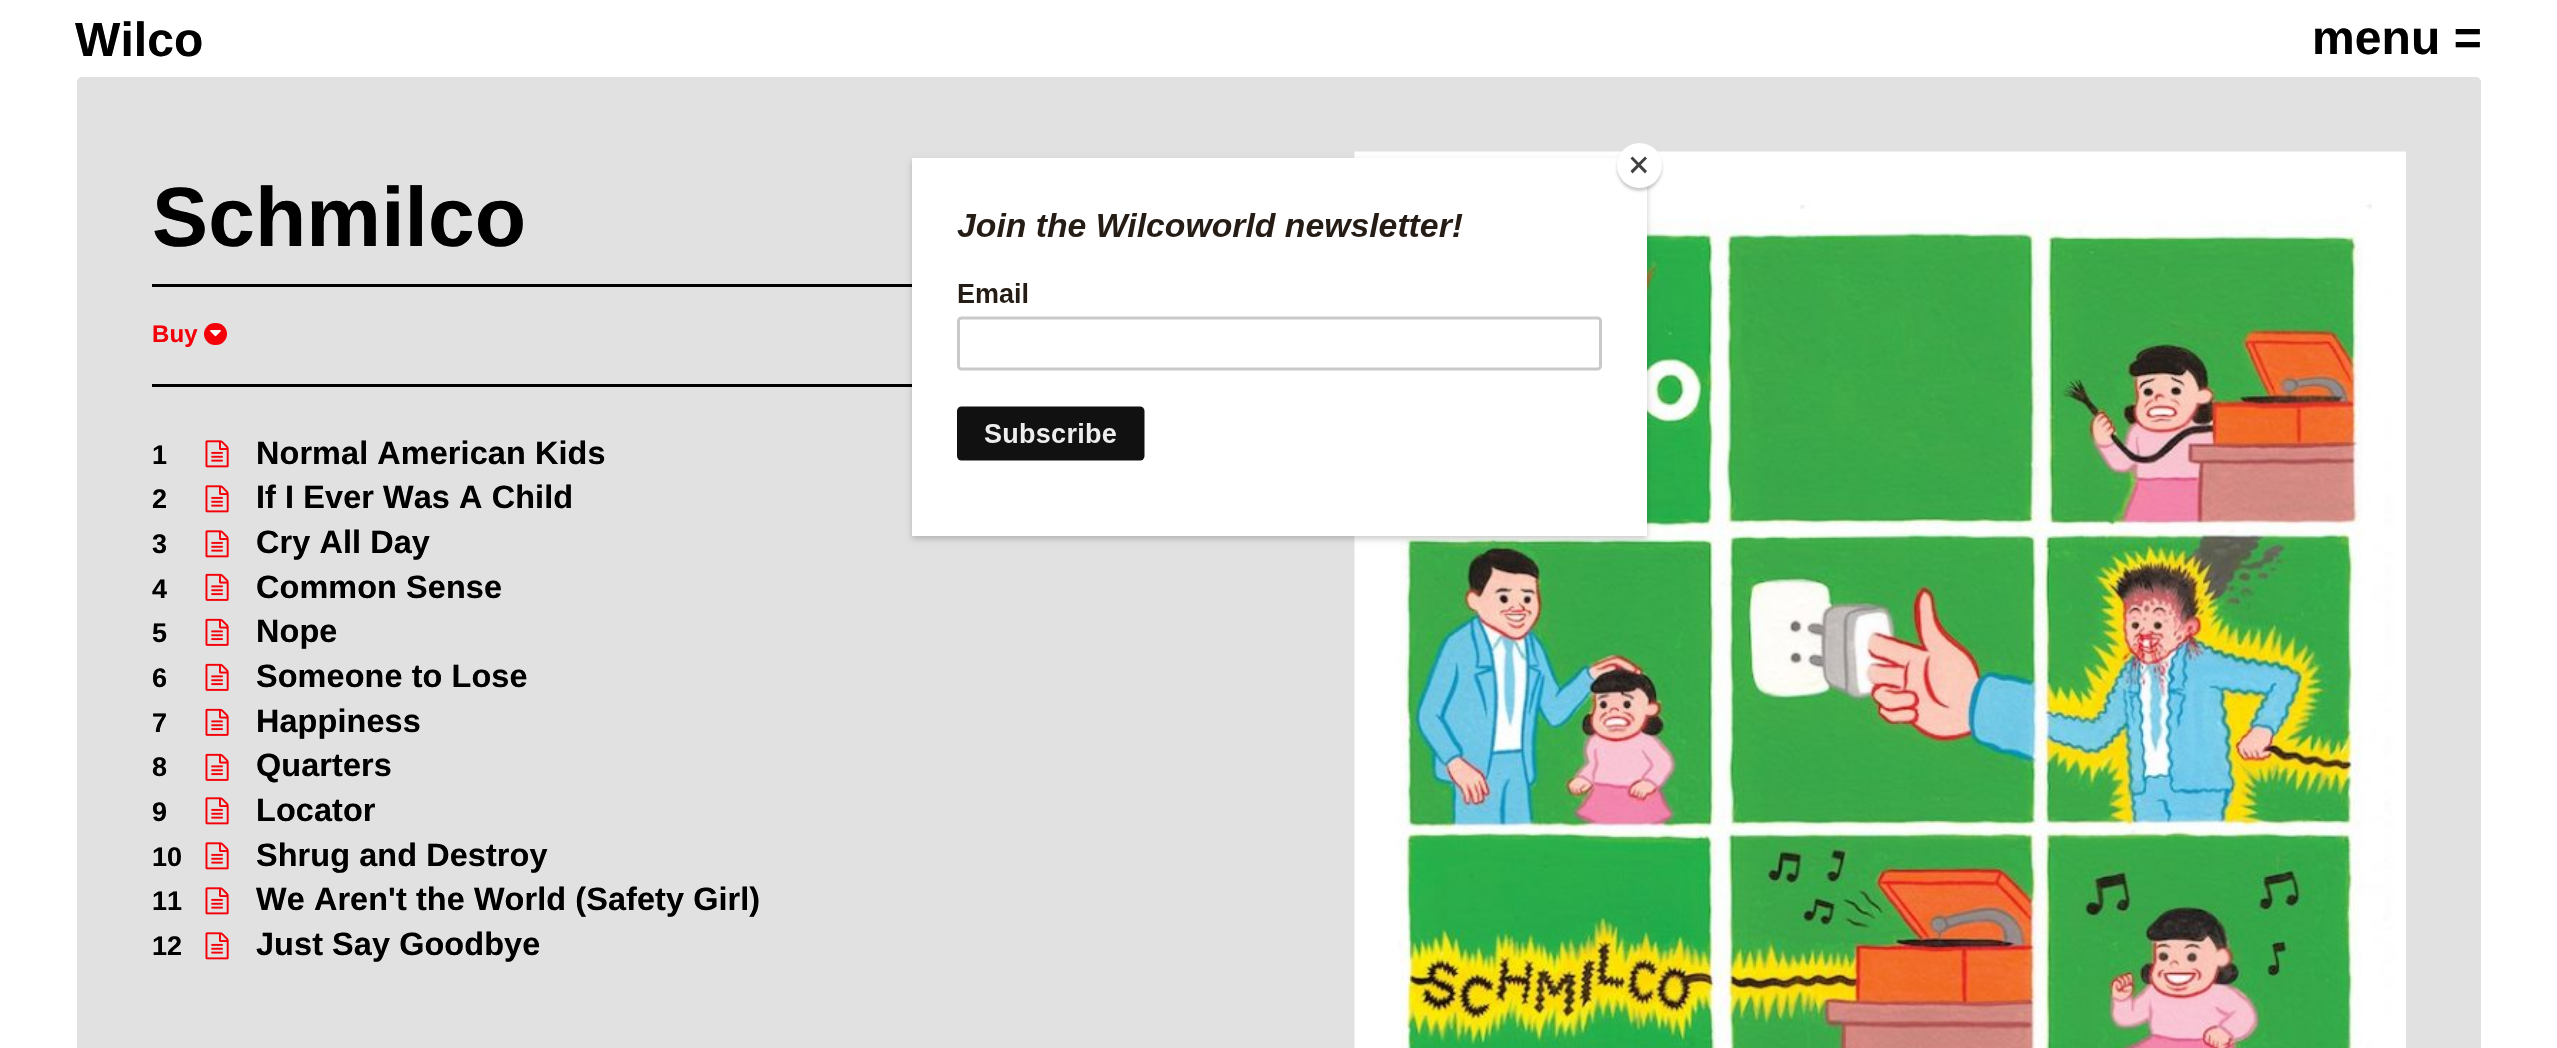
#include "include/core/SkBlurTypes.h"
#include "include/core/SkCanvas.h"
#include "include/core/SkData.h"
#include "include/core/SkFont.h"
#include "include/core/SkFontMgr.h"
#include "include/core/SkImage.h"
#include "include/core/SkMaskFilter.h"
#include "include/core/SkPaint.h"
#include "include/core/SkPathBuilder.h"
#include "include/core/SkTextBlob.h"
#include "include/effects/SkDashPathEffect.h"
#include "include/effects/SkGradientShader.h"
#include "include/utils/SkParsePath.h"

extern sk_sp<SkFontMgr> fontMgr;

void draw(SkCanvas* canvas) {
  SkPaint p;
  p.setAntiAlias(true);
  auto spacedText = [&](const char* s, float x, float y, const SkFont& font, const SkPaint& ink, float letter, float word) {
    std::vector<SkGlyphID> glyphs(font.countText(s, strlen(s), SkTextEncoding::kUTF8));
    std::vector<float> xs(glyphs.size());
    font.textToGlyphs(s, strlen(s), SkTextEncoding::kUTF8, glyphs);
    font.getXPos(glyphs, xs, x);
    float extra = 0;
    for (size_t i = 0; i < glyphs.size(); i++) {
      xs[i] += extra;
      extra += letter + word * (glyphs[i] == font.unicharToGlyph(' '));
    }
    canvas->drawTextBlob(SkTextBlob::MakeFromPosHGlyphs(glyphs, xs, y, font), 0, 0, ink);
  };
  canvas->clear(SK_ColorWHITE);
  p.setColor(SkColorSetRGB(225, 225, 225));
  canvas->drawRoundRect(SkRect::MakeLTRB(77, 77, 2481, 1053), 5, 5, p);
  p.setColor(SK_ColorBLACK);
  canvas->drawRect(SkRect::MakeLTRB(152, 284, 912, 287), p);
  canvas->drawRect(SkRect::MakeLTRB(152, 384, 912, 387), p);
  p.setColor(SkColorSetRGB(244, 0, 8));
  canvas->drawRoundRect(SkRect::MakeLTRB(204, 323, 227, 345), 11, 11, p);
  canvas->drawImageRect(SkImages::DeferredFromEncodedData(SkData::MakeFromFileName("images/1.png")), SkRect::MakeLTRB(210, 330, 221, 337), SkSamplingOptions());
  canvas->drawImageRect(SkImages::DeferredFromEncodedData(SkData::MakeFromFileName("images/2.png")), SkRect::MakeLTRB(205, 440, 229, 468), SkSamplingOptions());
  canvas->drawImageRect(SkImages::DeferredFromEncodedData(SkData::MakeFromFileName("images/2.png")), SkRect::MakeLTRB(205, 485, 229, 513), SkSamplingOptions());
  canvas->drawImageRect(SkImages::DeferredFromEncodedData(SkData::MakeFromFileName("images/2.png")), SkRect::MakeLTRB(205, 530, 229, 558), SkSamplingOptions());
  canvas->drawImageRect(SkImages::DeferredFromEncodedData(SkData::MakeFromFileName("images/3.png")), SkRect::MakeLTRB(205, 573, 229, 601), SkSamplingOptions());
  canvas->drawImageRect(SkImages::DeferredFromEncodedData(SkData::MakeFromFileName("images/3.png")), SkRect::MakeLTRB(205, 618, 229, 646), SkSamplingOptions());
  canvas->drawImageRect(SkImages::DeferredFromEncodedData(SkData::MakeFromFileName("images/3.png")), SkRect::MakeLTRB(205, 663, 229, 691), SkSamplingOptions());
  canvas->drawImageRect(SkImages::DeferredFromEncodedData(SkData::MakeFromFileName("images/3.png")), SkRect::MakeLTRB(205, 708, 229, 736), SkSamplingOptions());
  canvas->drawImageRect(SkImages::DeferredFromEncodedData(SkData::MakeFromFileName("images/3.png")), SkRect::MakeLTRB(205, 753, 229, 781), SkSamplingOptions());
  canvas->drawImageRect(SkImages::DeferredFromEncodedData(SkData::MakeFromFileName("images/2.png")), SkRect::MakeLTRB(205, 797, 229, 825), SkSamplingOptions());
  canvas->drawImageRect(SkImages::DeferredFromEncodedData(SkData::MakeFromFileName("images/2.png")), SkRect::MakeLTRB(205, 842, 229, 870), SkSamplingOptions());
  canvas->drawImageRect(SkImages::DeferredFromEncodedData(SkData::MakeFromFileName("images/2.png")), SkRect::MakeLTRB(205, 887, 229, 915), SkSamplingOptions());
  canvas->drawImageRect(SkImages::DeferredFromEncodedData(SkData::MakeFromFileName("images/2.png")), SkRect::MakeLTRB(205, 932, 229, 960), SkSamplingOptions());
  canvas->drawImageRect(SkImages::DeferredFromEncodedData(SkData::MakeFromFileName("images/4.png")), SkRect::MakeLTRB(1354, 151, 2406, 1048), SkSamplingOptions());
  p.setColor(SkColorSetARGB(51, 0, 0, 0));
  p.setMaskFilter(SkMaskFilter::MakeBlur(kNormal_SkBlurStyle, 3));
  canvas->drawRect(SkRect::MakeLTRB(912, 161, 1647, 539), p);
  p.setMaskFilter(nullptr);
  canvas->drawImageRect(SkImages::DeferredFromEncodedData(SkData::MakeFromFileName("images/5.png")), SkRect::MakeLTRB(912, 158, 1647, 536), SkSamplingOptions());
  p.setMaskFilter(SkMaskFilter::MakeBlur(kNormal_SkBlurStyle, 1.5f));
  canvas->drawRoundRect(SkRect::MakeLTRB(1617, 146, 1662, 191), 22.5f, 22.5f, p);
  p.setMaskFilter(nullptr);
  p.setColor(SK_ColorWHITE);
  canvas->drawCircle(1639.5f, 165.5f, 22.5f, p);
  p.setColor(SkColorSetRGB(65, 65, 65));
  canvas->drawPath(SkPathBuilder().moveTo(1645, 156.5f).lineTo(1647, 158.5f).lineTo(1632.5f, 173.5f).lineTo(1630.5f, 171).close().detach(), p);
  canvas->drawPath(SkPathBuilder().moveTo(1630.5f, 158.5f).lineTo(1632.5f, 156.5f).lineTo(1647, 171).lineTo(1645, 173.5f).close().detach(), p);
  SkFont font1(fontMgr->matchFamilyStyle("Liberation Sans", SkFontStyle::Bold()), 48);
  font1.setSubpixel(true);
  p.setColor(SK_ColorBLACK);
  spacedText("Wilco", 75, 56, font1, p, 0.1f, 0);
  spacedText("menu =", 2312, 54, font1, p, 0.1f, 0);
  SkFont font2(fontMgr->matchFamilyStyle("Liberation Sans", SkFontStyle::Bold()), 84);
  font2.setSubpixel(true);
  spacedText("Schmilco", 152, 246, font2, p, 0.1f, 0);
  SkFont font3(fontMgr->matchFamilyStyle("Liberation Sans", SkFontStyle::Bold()), 24);
  font3.setSubpixel(true);
  p.setColor(SkColorSetRGB(244, 0, 8));
  spacedText("Buy", 152, 342, font3, p, 0.1f, 0);
  SkFont font4(fontMgr->matchFamilyStyle("Liberation Sans", SkFontStyle::Bold()), 27);
  font4.setSubpixel(true);
  p.setColor(SK_ColorBLACK);
  spacedText("1", 152, 464, font4, p, 0.1f, 0);
  SkFont font5(fontMgr->matchFamilyStyle("Liberation Sans", SkFontStyle::Bold()), 32.4f);
  font5.setSubpixel(true);
  spacedText("Normal American Kids", 256, 464, font5, p, 0.1f, 0);
  spacedText("2", 152, 508, font4, p, 0.1f, 0);
  spacedText("If I Ever Was A Child", 256, 508, font5, p, 0.1f, 0);
  spacedText("3", 152, 553, font4, p, 0.1f, 0);
  spacedText("Cry All Day", 256, 553, font5, p, 0.1f, 0);
  spacedText("4", 152, 598, font4, p, 0.1f, 0);
  spacedText("Common Sense", 256, 598, font5, p, 0.1f, 0);
  spacedText("5", 152, 642, font4, p, 0.1f, 0);
  spacedText("Nope", 256, 642, font5, p, 0.1f, 0);
  spacedText("6", 152, 687, font4, p, 0.1f, 0);
  spacedText("Someone to Lose", 256, 687, font5, p, 0.1f, 0);
  spacedText("7", 152, 732, font4, p, 0.1f, 0);
  spacedText("Happiness", 256, 732, font5, p, 0.1f, 0);
  spacedText("8", 152, 776, font4, p, 0.1f, 0);
  spacedText("Quarters", 256, 776, font5, p, 0.1f, 0);
  spacedText("9", 152, 821, font4, p, 0.1f, 0);
  spacedText("Locator", 256, 821, font5, p, 0.1f, 0);
  spacedText("10", 152, 866, font4, p, 0.1f, 0);
  spacedText("Shrug and Destroy", 256, 866, font5, p, 0.1f, 0);
  spacedText("11", 152, 910, font4, p, 0.1f, 0);
  spacedText("We Aren't the World (Safety Girl)", 256, 910, font5, p, 0.1f, 0);
  spacedText("12", 152, 955, font4, p, 0.1f, 0);
  spacedText("Just Say Goodbye", 256, 955, font5, p, 0.1f, 0);
}
